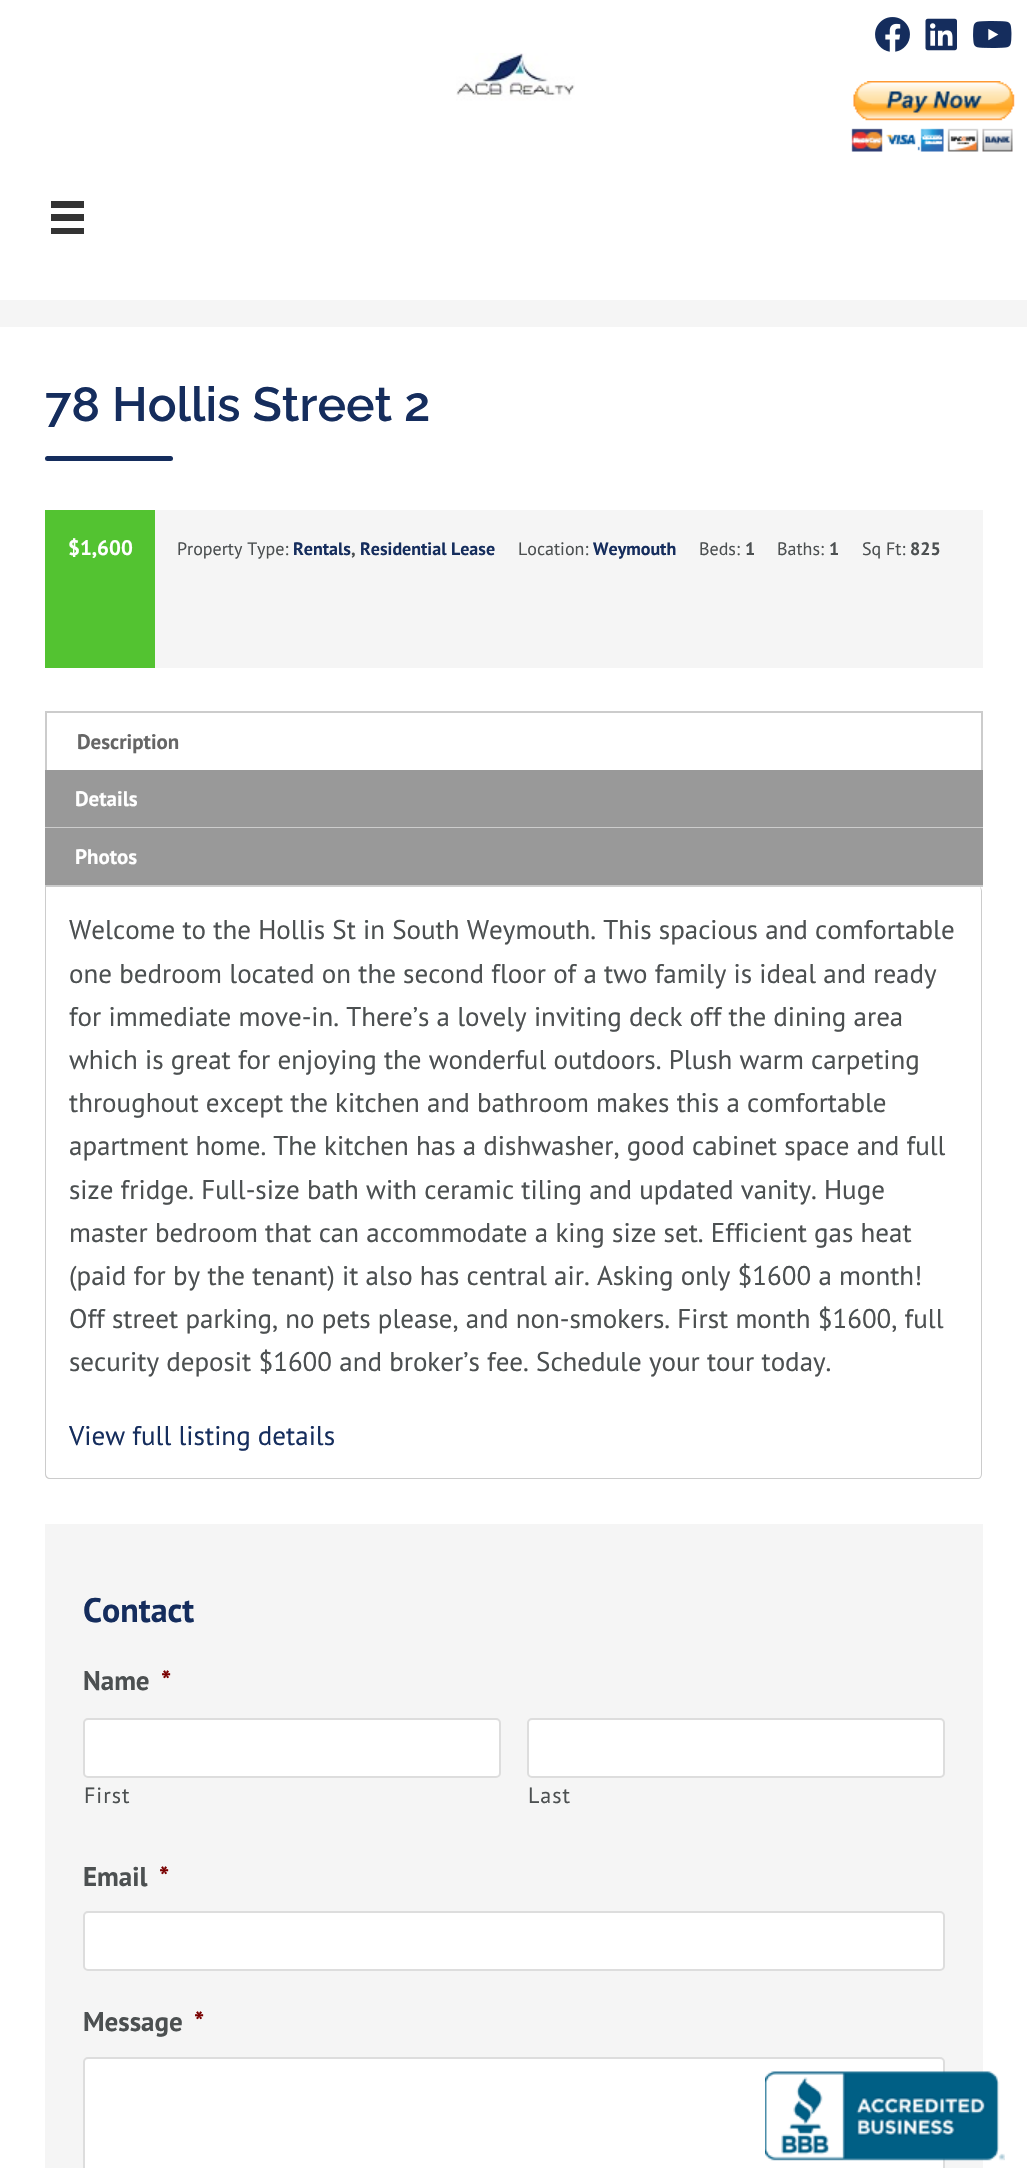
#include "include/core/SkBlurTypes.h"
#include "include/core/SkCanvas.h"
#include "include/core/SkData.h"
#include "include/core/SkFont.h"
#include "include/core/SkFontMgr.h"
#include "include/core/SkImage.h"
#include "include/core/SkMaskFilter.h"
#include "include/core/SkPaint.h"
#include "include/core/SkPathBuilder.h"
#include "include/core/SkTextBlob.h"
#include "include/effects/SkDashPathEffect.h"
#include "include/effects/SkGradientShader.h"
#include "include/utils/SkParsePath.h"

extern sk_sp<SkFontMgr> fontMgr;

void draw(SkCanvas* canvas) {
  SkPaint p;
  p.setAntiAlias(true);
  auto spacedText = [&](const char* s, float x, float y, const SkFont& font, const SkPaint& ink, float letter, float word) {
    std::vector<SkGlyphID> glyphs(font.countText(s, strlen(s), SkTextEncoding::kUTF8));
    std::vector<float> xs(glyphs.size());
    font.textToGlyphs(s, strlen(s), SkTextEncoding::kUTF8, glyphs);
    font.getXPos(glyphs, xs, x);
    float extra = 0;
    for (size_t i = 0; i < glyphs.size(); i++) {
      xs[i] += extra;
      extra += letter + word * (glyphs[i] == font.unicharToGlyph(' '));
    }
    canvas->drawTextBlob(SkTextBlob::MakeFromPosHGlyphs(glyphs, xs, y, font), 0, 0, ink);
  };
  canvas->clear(SK_ColorWHITE);
  canvas->drawImageRect(SkImages::DeferredFromEncodedData(SkData::MakeFromFileName("images/1.png")), SkRect::MakeLTRB(875, 17, 910, 52), SkSamplingOptions());
  canvas->drawImageRect(SkImages::DeferredFromEncodedData(SkData::MakeFromFileName("images/2.png")), SkRect::MakeLTRB(925, 18, 957, 51), SkSamplingOptions());
  canvas->drawImageRect(SkImages::DeferredFromEncodedData(SkData::MakeFromFileName("images/3.png")), SkRect::MakeLTRB(973, 21, 1012, 48), SkSamplingOptions());
  canvas->drawImageRect(SkImages::DeferredFromEncodedData(SkData::MakeFromFileName("images/4.png")), SkRect::MakeLTRB(456, 53, 575, 101), SkSamplingOptions());
  p.setColor(SkColorSetRGB(51, 51, 51));
  canvas->drawRect(SkRect::MakeLTRB(51, 201, 84, 208), p);
  canvas->drawRect(SkRect::MakeLTRB(51, 214, 84, 221), p);
  canvas->drawRect(SkRect::MakeLTRB(51, 228, 84, 234), p);
  canvas->drawImageRect(SkImages::DeferredFromEncodedData(SkData::MakeFromFileName("images/5.png")), SkRect::MakeLTRB(851, 81, 1015, 152), SkSamplingOptions());
  p.setColor(SkColorSetRGB(245, 245, 245));
  canvas->drawRect(SkRect::MakeLTRB(0, 300, 1027, 327), p);
  p.setColor(SkColorSetRGB(21, 45, 93));
  canvas->drawRoundRect(SkRect::MakeLTRB(45, 456, 173, 461), 2.5f, 2.5f, p);
  p.setColor(SkColorSetRGB(245, 245, 245));
  canvas->drawRect(SkRect::MakeLTRB(155, 510, 983, 668), p);
  p.setColor(SkColorSetRGB(83, 195, 49));
  canvas->drawRect(SkRect::MakeLTRB(45, 510, 155, 668), p);
  p.setColor(SkColorSetRGB(204, 204, 204));
  canvas->drawRect(SkRect::MakeLTRB(45, 711, 983, 713), p);
  canvas->drawRect(SkRect::MakeLTRB(981, 711, 983, 770), p);
  canvas->drawRect(SkRect::MakeLTRB(45, 711, 47, 770), p);
  p.setColor(SkColorSetRGB(153, 153, 153));
  canvas->drawRect(SkRect::MakeLTRB(45, 770, 983, 827), p);
  p.setColor(SkColorSetRGB(204, 204, 204));
  canvas->drawRect(SkRect::MakeLTRB(45, 827, 983, 828), p);
  p.setColor(SkColorSetRGB(153, 153, 153));
  canvas->drawRect(SkRect::MakeLTRB(45, 828, 983, 885), p);
  p.setColor(SkColorSetRGB(204, 204, 204));
  canvas->drawPath(SkPathBuilder(SkPathFillType::kEvenOdd).moveTo(45, 886).lineTo(978, 886).cubicTo(980, 886, 982, 889, 982, 891).lineTo(982, 1474).cubicTo(982, 1477, 980, 1479, 978, 1479).lineTo(50, 1479).cubicTo(47, 1479, 45, 1477, 45, 1474).close().moveTo(46, 886).lineTo(978, 886).cubicTo(980, 886, 981, 889, 981, 891).lineTo(981, 1474).cubicTo(981, 1476, 980, 1478, 978, 1478).lineTo(50, 1478).cubicTo(48, 1478, 46, 1476, 46, 1474).close().detach(), p);
  canvas->drawRect(SkRect::MakeLTRB(45, 885, 983, 887), p);
  p.setColor(SkColorSetRGB(245, 245, 245));
  canvas->drawRect(SkRect::MakeLTRB(45, 1524, 983, 2168), p);
  p.setColor(SK_ColorWHITE);
  canvas->drawRoundRect(SkRect::MakeLTRB(84, 1719, 500, 1777), 4, 4, p);
  p.setStyle(SkPaint::kStroke_Style);
  p.setStrokeWidth(2);
  p.setColor(SkColorSetRGB(221, 221, 221));
  canvas->drawRoundRect(SkRect::MakeLTRB(84, 1719, 500, 1777), 4, 4, p);
  p.setStyle(SkPaint::kFill_Style);
  p.setColor(SK_ColorWHITE);
  canvas->drawRoundRect(SkRect::MakeLTRB(528, 1719, 944, 1777), 4, 4, p);
  p.setStyle(SkPaint::kStroke_Style);
  p.setColor(SkColorSetRGB(221, 221, 221));
  canvas->drawRoundRect(SkRect::MakeLTRB(528, 1719, 944, 1777), 4, 4, p);
  p.setStyle(SkPaint::kFill_Style);
  p.setColor(SK_ColorWHITE);
  canvas->drawRoundRect(SkRect::MakeLTRB(84, 1912, 944, 1970), 4, 4, p);
  p.setStyle(SkPaint::kStroke_Style);
  p.setColor(SkColorSetRGB(221, 221, 221));
  canvas->drawRoundRect(SkRect::MakeLTRB(84, 1912, 944, 1970), 4, 4, p);
  p.setStyle(SkPaint::kFill_Style);
  p.setColor(SK_ColorWHITE);
  canvas->drawRoundRect(SkRect::MakeLTRB(84, 2058, 944, 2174), 4, 4, p);
  p.setStyle(SkPaint::kStroke_Style);
  p.setColor(SkColorSetRGB(221, 221, 221));
  canvas->drawRoundRect(SkRect::MakeLTRB(84, 2058, 944, 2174), 4, 4, p);
  canvas->drawImageRect(SkImages::DeferredFromEncodedData(SkData::MakeFromFileName("images/6.png")), SkRect::MakeLTRB(765, 2071, 1005, 2161), SkSamplingOptions());
  SkFont font1(fontMgr->matchFamilyStyle("Raleway", SkFontStyle(600, SkFontStyle::kNormal_Width, SkFontStyle::kUpright_Slant)), 48);
  font1.setSubpixel(true);
  p.setStyle(SkPaint::kFill_Style);
  p.setColor(SkColorSetRGB(21, 45, 93));
  canvas->drawString("78 Hollis Street 2", 45, 421, font1, p);
  SkFont font2(fontMgr->matchFamilyStyle("PT Sans", SkFontStyle::Bold()), 21);
  font2.setSubpixel(true);
  p.setColor(SK_ColorWHITE);
  canvas->drawString("$1,600", 68, 555, font2, p);
  SkFont font3(fontMgr->matchFamilyStyle("PT Sans", SkFontStyle::Normal()), 18);
  font3.setSubpixel(true);
  p.setColor(SkColorSetRGB(76, 80, 81));
  canvas->drawString("Property Type:", 177, 555, font3, p);
  SkFont font4(fontMgr->matchFamilyStyle("PT Sans", SkFontStyle::Bold()), 18);
  font4.setSubpixel(true);
  p.setColor(SkColorSetRGB(21, 45, 93));
  canvas->drawString("Rentals", 293, 555, font4, p);
  p.setColor(SkColorSetRGB(76, 80, 81));
  canvas->drawString(",", 351, 555, font4, p);
  p.setColor(SkColorSetRGB(21, 45, 93));
  canvas->drawString("Residential Lease", 360, 555, font4, p);
  p.setColor(SkColorSetRGB(76, 80, 81));
  canvas->drawString("Location:", 518, 555, font3, p);
  p.setColor(SkColorSetRGB(21, 45, 93));
  canvas->drawString("Weymouth", 593, 555, font4, p);
  p.setColor(SkColorSetRGB(76, 80, 81));
  canvas->drawString("Beds:", 699, 555, font3, p);
  canvas->drawString("1", 745, 555, font4, p);
  canvas->drawString("Baths:", 777, 555, font3, p);
  canvas->drawString("1", 829, 555, font4, p);
  canvas->drawString("Sq Ft:", 862, 555, font3, p);
  canvas->drawString("825", 910, 555, font4, p);
  p.setColor(SkColorSetRGB(102, 102, 102));
  canvas->drawString("Description", 77, 749, font2, p);
  p.setColor(SK_ColorWHITE);
  canvas->drawString("Details", 75, 806, font2, p);
  canvas->drawString("Photos", 75, 864, font2, p);
  SkFont font5(fontMgr->matchFamilyStyle("PT Sans", SkFontStyle::Normal()), 27);
  font5.setSubpixel(true);
  p.setColor(SkColorSetRGB(76, 80, 81));
  canvas->drawString("Welcome to the Hollis St in South Weymouth. This spacious and comfortable", 69, 939, font5, p);
  canvas->drawString("one bedroom located on the second floor of a two family is ideal and ready", 69, 983, font5, p);
  canvas->drawString("for immediate move-in. There’s a lovely inviting deck off the dining area", 69, 1026, font5, p);
  canvas->drawString("which is great for enjoying the wonderful outdoors. Plush warm carpeting", 69, 1069, font5, p);
  canvas->drawString("throughout except the kitchen and bathroom makes this a comfortable", 69, 1112, font5, p);
  canvas->drawString("apartment home. The kitchen has a dishwasher, good cabinet space and full", 69, 1155, font5, p);
  canvas->drawString("size fridge. Full-size bath with ceramic tiling and updated vanity. Huge", 69, 1199, font5, p);
  canvas->drawString("master bedroom that can accommodate a king size set. Efficient gas heat", 69, 1242, font5, p);
  canvas->drawString("(paid for by the tenant) it also has central air. Asking only $1600 a month!", 69, 1285, font5, p);
  canvas->drawString("Off street parking, no pets please, and non-smokers. First month $1600, full", 69, 1328, font5, p);
  canvas->drawString("security deposit $1600 and broker’s fee. Schedule your tour today.", 69, 1371, font5, p);
  p.setColor(SkColorSetRGB(21, 45, 93));
  canvas->drawString("View full listing details", 69, 1445, font5, p);
  SkFont font6(fontMgr->matchFamilyStyle("PT Sans", SkFontStyle::Bold()), 34);
  font6.setSubpixel(true);
  canvas->drawString("Contact", 83, 1622, font6, p);
  SkFont font7(fontMgr->matchFamilyStyle("PT Sans", SkFontStyle::Bold()), 27);
  font7.setSubpixel(true);
  p.setColor(SkColorSetRGB(76, 80, 81));
  canvas->drawString("Name", 83, 1690, font7, p);
  p.setColor(SkColorSetRGB(121, 0, 0));
  canvas->drawString("*", 161, 1690, font7, p);
  SkFont font8(fontMgr->matchFamilyStyle("PT Sans", SkFontStyle::Normal()), 22);
  font8.setSubpixel(true);
  p.setColor(SkColorSetRGB(76, 80, 81));
  spacedText("First", 84, 1803, font8, p, 1, 0);
  spacedText("Last", 528, 1803, font8, p, 1, 0);
  canvas->drawString("Email", 83, 1886, font7, p);
  p.setColor(SkColorSetRGB(121, 0, 0));
  canvas->drawString("*", 159, 1886, font7, p);
  p.setColor(SkColorSetRGB(76, 80, 81));
  canvas->drawString("Message", 83, 2031, font7, p);
  p.setColor(SkColorSetRGB(121, 0, 0));
  canvas->drawString("*", 194, 2031, font7, p);
}
